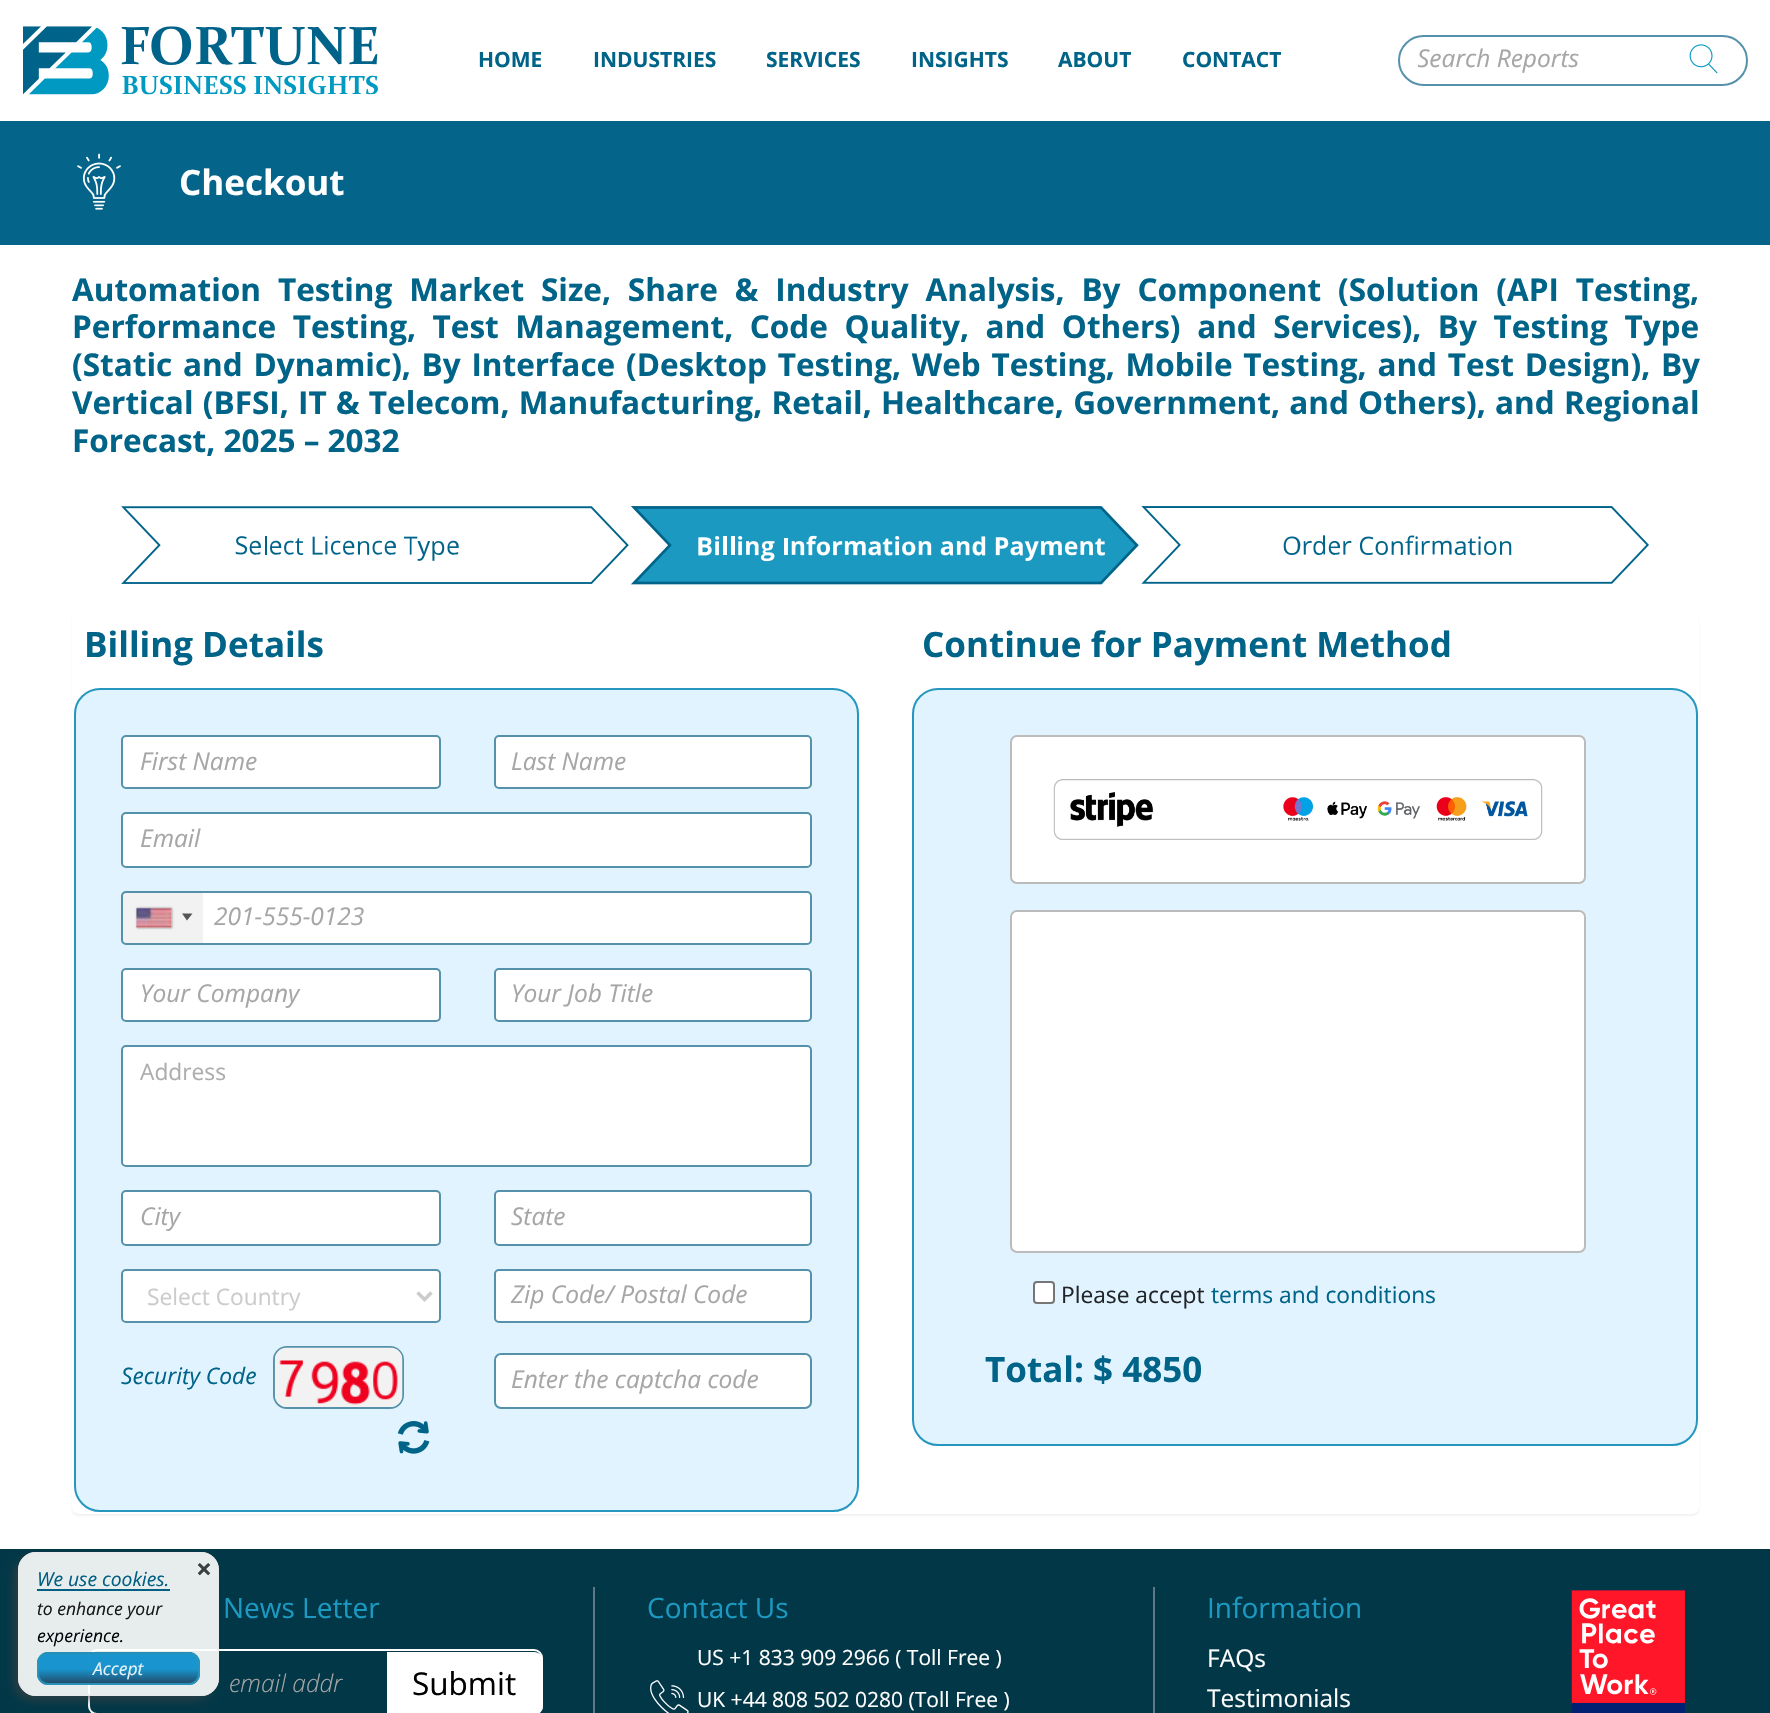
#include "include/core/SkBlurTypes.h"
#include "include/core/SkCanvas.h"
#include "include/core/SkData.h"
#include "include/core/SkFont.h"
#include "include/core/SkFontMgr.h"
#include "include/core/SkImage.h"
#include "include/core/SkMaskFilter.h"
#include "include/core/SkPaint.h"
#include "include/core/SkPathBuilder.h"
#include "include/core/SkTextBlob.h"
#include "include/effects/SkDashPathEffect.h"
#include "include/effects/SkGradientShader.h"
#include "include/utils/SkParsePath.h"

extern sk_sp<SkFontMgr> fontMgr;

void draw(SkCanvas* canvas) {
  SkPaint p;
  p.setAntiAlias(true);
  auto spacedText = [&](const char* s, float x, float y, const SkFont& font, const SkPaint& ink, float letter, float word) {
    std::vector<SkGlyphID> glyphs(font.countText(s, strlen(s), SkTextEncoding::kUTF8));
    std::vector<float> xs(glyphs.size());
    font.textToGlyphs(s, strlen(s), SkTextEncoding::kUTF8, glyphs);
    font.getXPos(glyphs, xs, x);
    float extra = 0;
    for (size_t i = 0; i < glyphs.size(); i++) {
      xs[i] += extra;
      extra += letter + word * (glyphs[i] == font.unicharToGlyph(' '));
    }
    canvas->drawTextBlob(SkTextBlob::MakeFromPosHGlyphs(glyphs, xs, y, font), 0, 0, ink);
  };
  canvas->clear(SK_ColorWHITE);
  canvas->drawImageRect(SkImages::DeferredFromEncodedData(SkData::MakeFromFileName("images/1.png")), SkRect::MakeLTRB(23, 26, 378, 95), SkSamplingOptions());
  p.setStyle(SkPaint::kStroke_Style);
  p.setStrokeWidth(2);
  p.setColor(SkColorSetRGB(86, 145, 171));
  canvas->drawRoundRect(SkRect::MakeLTRB(1399, 36, 1747, 85), 24.5f, 24.5f, p);
  canvas->drawImageRect(SkImages::DeferredFromEncodedData(SkData::MakeFromFileName("images/2.png")), SkRect::MakeLTRB(1689, 44, 1718, 74), SkSamplingOptions());
  p.setStyle(SkPaint::kFill_Style);
  p.setColor(SkColorSetRGB(4, 100, 137));
  canvas->drawRect(SkRect::MakeLTRB(0, 121, 1770, 245), p);
  canvas->drawImageRect(SkImages::DeferredFromEncodedData(SkData::MakeFromFileName("images/3.png")), SkRect::MakeLTRB(77, 153, 121, 210), SkSamplingOptions());
  canvas->drawImageRect(SkImages::DeferredFromEncodedData(SkData::MakeFromFileName("images/4.png")), SkRect::MakeLTRB(121, 506, 629, 584), SkSamplingOptions());
  canvas->drawImageRect(SkImages::DeferredFromEncodedData(SkData::MakeFromFileName("images/5.png")), SkRect::MakeLTRB(631, 506, 1139, 585), SkSamplingOptions());
  canvas->drawImageRect(SkImages::DeferredFromEncodedData(SkData::MakeFromFileName("images/6.png")), SkRect::MakeLTRB(1141, 506, 1649, 584), SkSamplingOptions());
  p.setColor(SkColorSetARGB(13, 0, 0, 0));
  p.setMaskFilter(SkMaskFilter::MakeBlur(kNormal_SkBlurStyle, 1));
  canvas->drawRoundRect(SkRect::MakeLTRB(72, 614, 1699, 1516), 7, 7, p);
  p.setMaskFilter(nullptr);
  p.setColor(SK_ColorWHITE);
  canvas->drawRoundRect(SkRect::MakeLTRB(72, 613, 1699, 1514), 7, 7, p);
  p.setColor(SkColorSetRGB(224, 243, 254));
  canvas->drawRoundRect(SkRect::MakeLTRB(75, 689, 858, 1511), 25, 25, p);
  p.setStyle(SkPaint::kStroke_Style);
  p.setColor(SkColorSetRGB(37, 150, 190));
  canvas->drawRoundRect(SkRect::MakeLTRB(75, 689, 858, 1511), 25, 25, p);
  p.setStyle(SkPaint::kFill_Style);
  p.setColor(SK_ColorWHITE);
  canvas->drawRoundRect(SkRect::MakeLTRB(122, 736, 440, 788), 4, 4, p);
  p.setStyle(SkPaint::kStroke_Style);
  p.setColor(SkColorSetRGB(86, 145, 171));
  canvas->drawRoundRect(SkRect::MakeLTRB(122, 736, 440, 788), 4, 4, p);
  p.setStyle(SkPaint::kFill_Style);
  p.setColor(SK_ColorWHITE);
  canvas->drawRoundRect(SkRect::MakeLTRB(495, 736, 811, 788), 4, 4, p);
  p.setStyle(SkPaint::kStroke_Style);
  p.setColor(SkColorSetRGB(86, 145, 171));
  canvas->drawRoundRect(SkRect::MakeLTRB(495, 736, 811, 788), 4, 4, p);
  p.setStyle(SkPaint::kFill_Style);
  p.setColor(SK_ColorWHITE);
  canvas->drawRoundRect(SkRect::MakeLTRB(122, 813, 811, 867), 4, 4, p);
  p.setStyle(SkPaint::kStroke_Style);
  p.setColor(SkColorSetRGB(86, 145, 171));
  canvas->drawRoundRect(SkRect::MakeLTRB(122, 813, 811, 867), 4, 4, p);
  p.setStyle(SkPaint::kFill_Style);
  p.setColor(SK_ColorWHITE);
  canvas->drawRoundRect(SkRect::MakeLTRB(122, 892, 811, 944), 4, 4, p);
  p.setStyle(SkPaint::kStroke_Style);
  p.setColor(SkColorSetRGB(86, 145, 171));
  canvas->drawRoundRect(SkRect::MakeLTRB(122, 892, 811, 944), 4, 4, p);
  p.setStyle(SkPaint::kFill_Style);
  p.setColor(SkColorSetARGB(13, 0, 0, 0));
  canvas->drawRect(SkRect::MakeLTRB(123, 893, 203, 943), p);
  p.setColor(SkColorSetRGB(136, 136, 136));
  p.setMaskFilter(SkMaskFilter::MakeBlur(kNormal_SkBlurStyle, 1));
  canvas->drawRect(SkRect::MakeLTRB(137, 908, 172, 928), p);
  p.setMaskFilter(nullptr);
  p.setColor(SkColorSetRGB(219, 219, 219));
  canvas->drawRect(SkRect::MakeLTRB(137, 908, 172, 928), p);
  canvas->drawImageRect(SkImages::DeferredFromEncodedData(SkData::MakeFromFileName("images/7.png")), SkRect::MakeLTRB(136, 908, 172, 928), SkSamplingOptions());
  p.setColor(SkColorSetRGB(85, 85, 85));
  canvas->drawPath(SkPathBuilder().moveTo(182, 913.5f).lineTo(192.5f, 913.5f).lineTo(187, 920.5f).close().detach(), p);
  p.setColor(SK_ColorWHITE);
  canvas->drawRoundRect(SkRect::MakeLTRB(122, 969, 440, 1021), 4, 4, p);
  p.setStyle(SkPaint::kStroke_Style);
  p.setColor(SkColorSetRGB(86, 145, 171));
  canvas->drawRoundRect(SkRect::MakeLTRB(122, 969, 440, 1021), 4, 4, p);
  p.setStyle(SkPaint::kFill_Style);
  p.setColor(SK_ColorWHITE);
  canvas->drawRoundRect(SkRect::MakeLTRB(495, 969, 811, 1021), 4, 4, p);
  p.setStyle(SkPaint::kStroke_Style);
  p.setColor(SkColorSetRGB(86, 145, 171));
  canvas->drawRoundRect(SkRect::MakeLTRB(495, 969, 811, 1021), 4, 4, p);
  p.setStyle(SkPaint::kFill_Style);
  p.setColor(SK_ColorWHITE);
  canvas->drawRoundRect(SkRect::MakeLTRB(122, 1046, 811, 1166), 4, 4, p);
  p.setStyle(SkPaint::kStroke_Style);
  p.setColor(SkColorSetRGB(86, 145, 171));
  canvas->drawRoundRect(SkRect::MakeLTRB(122, 1046, 811, 1166), 4, 4, p);
  p.setStyle(SkPaint::kFill_Style);
  p.setColor(SK_ColorWHITE);
  canvas->drawRoundRect(SkRect::MakeLTRB(122, 1191, 440, 1245), 4, 4, p);
  p.setStyle(SkPaint::kStroke_Style);
  p.setColor(SkColorSetRGB(86, 145, 171));
  canvas->drawRoundRect(SkRect::MakeLTRB(122, 1191, 440, 1245), 4, 4, p);
  p.setStyle(SkPaint::kFill_Style);
  p.setColor(SK_ColorWHITE);
  canvas->drawRoundRect(SkRect::MakeLTRB(495, 1191, 811, 1245), 4, 4, p);
  p.setStyle(SkPaint::kStroke_Style);
  p.setColor(SkColorSetRGB(86, 145, 171));
  canvas->drawRoundRect(SkRect::MakeLTRB(495, 1191, 811, 1245), 4, 4, p);
  p.setStyle(SkPaint::kFill_Style);
  p.setColor(SK_ColorWHITE);
  canvas->drawRoundRect(SkRect::MakeLTRB(122, 1270, 440, 1322), 4, 4, p);
  p.setStyle(SkPaint::kStroke_Style);
  p.setColor(SkColorSetRGB(86, 145, 171));
  canvas->drawRoundRect(SkRect::MakeLTRB(122, 1270, 440, 1322), 4, 4, p);
  p.setStrokeWidth(3.5f);
  p.setColor(SkColorSetRGB(205, 204, 204));
  canvas->drawPath(SkPathBuilder().moveTo(417.5f, 1292.5f).lineTo(424.5f, 1299.5f).lineTo(431.5f, 1292.5f).detach(), p);
  p.setStyle(SkPaint::kFill_Style);
  p.setColor(SK_ColorWHITE);
  canvas->drawRoundRect(SkRect::MakeLTRB(495, 1270, 811, 1322), 4, 4, p);
  p.setStyle(SkPaint::kStroke_Style);
  p.setStrokeWidth(2);
  p.setColor(SkColorSetRGB(86, 145, 171));
  canvas->drawRoundRect(SkRect::MakeLTRB(495, 1270, 811, 1322), 4, 4, p);
  canvas->drawRoundRect(SkRect::MakeLTRB(274, 1347, 403, 1408), 13, 13, p);
  canvas->drawImageRect(SkImages::DeferredFromEncodedData(SkData::MakeFromFileName("images/8.png")), SkRect::MakeLTRB(274, 1347, 403, 1407), SkSamplingOptions());
  canvas->drawImageRect(SkImages::DeferredFromEncodedData(SkData::MakeFromFileName("images/9.png")), SkRect::MakeLTRB(397, 1421, 430, 1454), SkSamplingOptions());
  p.setStyle(SkPaint::kFill_Style);
  p.setColor(SK_ColorWHITE);
  canvas->drawRoundRect(SkRect::MakeLTRB(495, 1354, 811, 1408), 6, 6, p);
  p.setStyle(SkPaint::kStroke_Style);
  p.setColor(SkColorSetRGB(86, 145, 171));
  canvas->drawRoundRect(SkRect::MakeLTRB(495, 1354, 811, 1408), 6, 6, p);
  p.setStyle(SkPaint::kFill_Style);
  p.setColor(SkColorSetRGB(224, 243, 254));
  canvas->drawRoundRect(SkRect::MakeLTRB(913, 689, 1697, 1445), 25, 25, p);
  p.setStyle(SkPaint::kStroke_Style);
  p.setColor(SkColorSetRGB(37, 150, 190));
  canvas->drawRoundRect(SkRect::MakeLTRB(913, 689, 1697, 1445), 25, 25, p);
  p.setStyle(SkPaint::kFill_Style);
  p.setColor(SK_ColorWHITE);
  canvas->drawRoundRect(SkRect::MakeLTRB(1011, 736, 1585, 883), 6, 6, p);
  p.setStyle(SkPaint::kStroke_Style);
  p.setColor(SkColorSetRGB(187, 187, 187));
  canvas->drawRoundRect(SkRect::MakeLTRB(1011, 736, 1585, 883), 6, 6, p);
  canvas->drawImageRect(SkImages::DeferredFromEncodedData(SkData::MakeFromFileName("images/10.png")), SkRect::MakeLTRB(1053, 779, 1543, 840), SkSamplingOptions());
  p.setStyle(SkPaint::kFill_Style);
  p.setColor(SK_ColorWHITE);
  canvas->drawRoundRect(SkRect::MakeLTRB(1011, 911, 1585, 1252), 6, 6, p);
  p.setStyle(SkPaint::kStroke_Style);
  p.setColor(SkColorSetRGB(187, 187, 187));
  canvas->drawRoundRect(SkRect::MakeLTRB(1011, 911, 1585, 1252), 6, 6, p);
  p.setStyle(SkPaint::kFill_Style);
  p.setColor(SK_ColorWHITE);
  canvas->drawRoundRect(SkRect::MakeLTRB(1034, 1282, 1054, 1303), 3, 3, p);
  p.setStyle(SkPaint::kStroke_Style);
  p.setColor(SkColorSetRGB(118, 118, 118));
  canvas->drawRoundRect(SkRect::MakeLTRB(1034, 1282, 1054, 1303), 3, 3, p);
  p.setStyle(SkPaint::kFill_Style);
  p.setColor(SkColorSetRGB(1, 55, 71));
  canvas->drawRect(SkRect::MakeLTRB(0, 1549, 1770, 1713), p);
  p.setStyle(SkPaint::kStroke_Style);
  p.setColor(SK_ColorWHITE);
  canvas->drawRoundRect(SkRect::MakeLTRB(89, 1650, 542, 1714), 8, 8, p);
  canvas->save();
  canvas->clipPath(SkPathBuilder(SkPathFillType::kEvenOdd).moveTo(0, 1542).lineTo(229, 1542).lineTo(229, 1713).lineTo(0, 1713).close().moveTo(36, 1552).lineTo(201, 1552).cubicTo(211, 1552, 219, 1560, 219, 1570).lineTo(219, 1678).cubicTo(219, 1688, 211, 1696, 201, 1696).lineTo(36, 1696).cubicTo(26, 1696, 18, 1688, 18, 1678).lineTo(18, 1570).cubicTo(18, 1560, 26, 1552, 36, 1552).close().detach(), true);
  p.setStyle(SkPaint::kFill_Style);
  p.setColor(SkColorSetARGB(230, 64, 64, 64));
  p.setMaskFilter(SkMaskFilter::MakeBlur(kNormal_SkBlurStyle, 6));
  canvas->drawRoundRect(SkRect::MakeLTRB(16, 1561, 210, 1698), 14, 14, p);
  p.setMaskFilter(nullptr);
  canvas->restore();
  p.setColor(SkColorSetARGB(230, 255, 255, 255));
  canvas->drawRoundRect(SkRect::MakeLTRB(18, 1552, 219, 1696), 18, 18, p);
  p.setStyle(SkPaint::kStroke_Style);
  p.setColor(SkColorSetARGB(230, 233, 233, 233));
  canvas->drawRoundRect(SkRect::MakeLTRB(19, 1553, 218, 1695), 17, 17, p);
  p.setStyle(SkPaint::kFill_Style);
  p.setColor(SkColorSetRGB(0, 95, 130));
  canvas->drawRect(SkRect::MakeLTRB(37, 1589, 170, 1591), p);
  canvas->save();
  canvas->clipPath(SkPathBuilder().moveTo(48, 1652).lineTo(189, 1652).cubicTo(195, 1652, 200, 1657, 200, 1663).lineTo(200, 1674).cubicTo(200, 1680, 195, 1685, 189, 1685).lineTo(48, 1685).cubicTo(42, 1685, 37, 1680, 37, 1674).lineTo(37, 1663).cubicTo(37, 1657, 42, 1652, 48, 1652).close().detach(), true);
  {
    const SkColor colors[] = {SkColorSetARGB(230, 2, 138, 202), SkColorSetARGB(230, 2, 138, 202), SkColorSetARGB(230, 13, 54, 86)};
    const float stops[] = {0, 0.5f, 1};
    const SkPoint ends[] = {{118, 1624}, {118, 1654}};
    p.setShader(SkGradientShader::MakeLinear(ends, colors, stops, 3, SkTileMode::kClamp));
    p.setAlpha(255);
  }
  canvas->drawRect(SkRect::MakeLTRB(37, 1652, 200, 1654), p);
  {
    const SkColor colors[] = {SkColorSetARGB(230, 2, 138, 202), SkColorSetARGB(230, 2, 138, 202), SkColorSetARGB(230, 13, 54, 86)};
    const float stops[] = {0, 0.5f, 1};
    const SkPoint ends[] = {{118, 1654}, {118, 1684}};
    p.setShader(SkGradientShader::MakeLinear(ends, colors, stops, 3, SkTileMode::kClamp));
    p.setAlpha(255);
  }
  canvas->drawRect(SkRect::MakeLTRB(37, 1654, 200, 1684), p);
  {
    const SkColor colors[] = {SkColorSetARGB(230, 2, 138, 202), SkColorSetARGB(230, 2, 138, 202), SkColorSetARGB(230, 13, 54, 86)};
    const float stops[] = {0, 0.5f, 1};
    const SkPoint ends[] = {{118, 1684}, {118, 1713}};
    p.setShader(SkGradientShader::MakeLinear(ends, colors, stops, 3, SkTileMode::kClamp));
    p.setAlpha(255);
  }
  canvas->drawRect(SkRect::MakeLTRB(37, 1684, 200, 1685), p);
  canvas->restore();
  p.setStyle(SkPaint::kStroke_Style);
  p.setShader(nullptr);
  p.setColor(SkColorSetARGB(230, 37, 150, 190));
  canvas->drawRoundRect(SkRect::MakeLTRB(38, 1653, 199, 1684), 10, 10, p);
  p.setStyle(SkPaint::kFill_Style);
  p.setColor(SkColorSetRGB(96, 119, 132));
  canvas->drawRect(SkRect::MakeLTRB(593, 1587, 595, 1713), p);
  p.setColor(SK_ColorWHITE);
  canvas->drawPath(SkPathBuilder().moveTo(387, 1652).lineTo(534, 1652).cubicTo(539, 1652, 543, 1656, 543, 1661).lineTo(543, 1706).cubicTo(543, 1711, 539, 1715, 534, 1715).lineTo(387, 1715).close().detach(), p);
  p.setColor(SkColorSetRGB(96, 119, 132));
  canvas->drawRect(SkRect::MakeLTRB(1153, 1587, 1155, 1713), p);
  canvas->drawImageRect(SkImages::DeferredFromEncodedData(SkData::MakeFromFileName("images/11.png")), SkRect::MakeLTRB(650, 1680, 689, 1713), SkSamplingOptions());
  canvas->drawImageRect(SkImages::DeferredFromEncodedData(SkData::MakeFromFileName("images/12.png")), SkRect::MakeLTRB(1571, 1590, 1685, 1713), SkSamplingOptions());
  SkFont font1(fontMgr->matchFamilyStyle("Open Sans", SkFontStyle::Bold()), 21);
  font1.setSubpixel(true);
  p.setColor(SkColorSetRGB(0, 99, 136));
  canvas->drawString("HOME", 478, 67, font1, p);
  canvas->drawString("INDUSTRIES", 593, 67, font1, p);
  canvas->drawString("SERVICES", 766, 67, font1, p);
  canvas->drawString("INSIGHTS", 911, 67, font1, p);
  canvas->drawString("ABOUT", 1058, 67, font1, p);
  canvas->drawString("CONTACT", 1182, 67, font1, p);
  canvas->save();
  canvas->clipRect(SkRect::MakeLTRB(1418, 40, 1678, 74));
  SkFont font2(fontMgr->matchFamilyStyle("Open Sans", SkFontStyle::Italic()), 24.5f);
  font2.setSubpixel(true);
  p.setColor(SkColorSetRGB(166, 166, 166));
  canvas->drawString("Search Reports", 1417, 67, font2, p);
  canvas->restore();
  SkFont font3(fontMgr->matchFamilyStyle("Open Sans", SkFontStyle::Bold()), 35);
  font3.setSubpixel(true);
  p.setColor(SK_ColorWHITE);
  canvas->drawString("Checkout", 179, 195, font3, p);
  SkFont font4(fontMgr->matchFamilyStyle("Open Sans", SkFontStyle::Bold()), 31.5f);
  font4.setSubpixel(true);
  p.setColor(SkColorSetRGB(0, 99, 136));
  spacedText("Automation Testing Market Size, Share & Industry Analysis, By Component (Solution (API Testing,", 72, 301, font4, p, 0, 8.75f);
  spacedText("Performance Testing, Test Management, Code Quality, and Others) and Services), By Testing Type", 72, 338, font4, p, 0, 8.4f);
  spacedText("(Static and Dynamic), By Interface (Desktop Testing, Web Testing, Mobile Testing, and Test Design), By", 72, 376, font4, p, 0, 2.6f);
  spacedText("Vertical (BFSI, IT & Telecom, Manufacturing, Retail, Healthcare, Government, and Others), and Regional", 72, 414, font4, p, 0, 1.1f);
  canvas->drawString("Forecast, 2025 – 2032", 72, 452, font4, p);
  canvas->drawString("Billing Details", 84, 657, font3, p);
  p.setColor(SkColorSetRGB(166, 166, 166));
  canvas->drawString("First Name", 140, 770, font2, p);
  canvas->drawString("Last Name", 511, 770, font2, p);
  canvas->drawString("Email", 140, 847, font2, p);
  canvas->drawString("201-555-0123", 214, 925, font2, p);
  canvas->drawString("Your Company", 140, 1002, font2, p);
  canvas->drawString("Your Job Title", 511, 1002, font2, p);
  SkFont font5(fontMgr->matchFamilyStyle("Open Sans", SkFontStyle::Normal()), 22.75f);
  font5.setSubpixel(true);
  p.setColor(SkColorSetRGB(173, 173, 173));
  canvas->drawString("Address", 140, 1080, font5, p);
  p.setColor(SkColorSetRGB(166, 166, 166));
  canvas->drawString("City", 140, 1225, font2, p);
  canvas->drawString("State", 511, 1225, font2, p);
  p.setColor(SkColorSetRGB(205, 204, 204));
  canvas->drawString("Select Country", 147, 1305, font5, p);
  p.setColor(SkColorSetRGB(166, 166, 166));
  canvas->drawString("Zip Code/ Postal Code", 511, 1303, font2, p);
  SkFont font6(fontMgr->matchFamilyStyle("Open Sans", SkFontStyle::Italic()), 22.75f);
  font6.setSubpixel(true);
  p.setColor(SkColorSetRGB(0, 99, 136));
  canvas->drawString("Security Code", 121, 1384, font6, p);
  p.setColor(SkColorSetRGB(166, 166, 166));
  canvas->drawString("Enter the captcha code", 511, 1388, font2, p);
  p.setColor(SkColorSetRGB(0, 99, 136));
  canvas->drawString("Continue for Payment Method", 922, 657, font3, p);
  p.setColor(SkColorSetRGB(33, 37, 41));
  canvas->drawString("Please accept", 1061, 1303, font5, p);
  p.setColor(SkColorSetRGB(0, 99, 136));
  canvas->drawString("terms and conditions", 1211, 1303, font5, p);
  canvas->drawString("Total: $ 4850", 985, 1382, font3, p);
  SkFont font7(fontMgr->matchFamilyStyle("Open Sans", SkFontStyle::Bold()), 28);
  font7.setSubpixel(true);
  p.setColor(SkColorSetRGB(58, 63, 65));
  canvas->drawString("×", 196, 1579, font7, p);
  SkFont font8(fontMgr->matchFamilyStyle("Open Sans", SkFontStyle::Italic()), 19.25f);
  font8.setSubpixel(true);
  p.setColor(SkColorSetRGB(0, 95, 130));
  canvas->drawString("We use cookies.", 37, 1586, font8, p);
  SkFont font9(fontMgr->matchFamilyStyle("Open Sans", SkFontStyle::Italic()), 17.5f);
  font9.setSubpixel(true);
  p.setColor(SkColorSetRGB(23, 24, 24));
  canvas->drawString("to enhance your", 37, 1615, font9, p);
  p.setColor(SkColorSetRGB(0, 6, 7));
  canvas->drawString("experience.", 37, 1642, font9, p);
  p.setColor(SkColorSetRGB(232, 243, 248));
  canvas->drawString("Accept", 93, 1675, font9, p);
  SkFont font10(fontMgr->matchFamilyStyle("Open Sans", SkFontStyle::Normal()), 28);
  font10.setSubpixel(true);
  p.setColor(SkColorSetRGB(28, 153, 193));
  canvas->drawString("News Letter", 223, 1618, font10, p);
  SkFont font11(fontMgr->matchFamilyStyle("Open Sans", SkFontStyle(300, SkFontStyle::kNormal_Width, SkFontStyle::kItalic_Slant)), 24.5f);
  font11.setSubpixel(true);
  p.setColor(SkColorSetRGB(166, 166, 166));
  canvas->drawString("email addr", 229, 1692, font11, p);
  SkFont font12(fontMgr->matchFamilyStyle("Open Sans", SkFontStyle::Normal()), 31.5f);
  font12.setSubpixel(true);
  p.setColor(SK_ColorBLACK);
  canvas->drawString("Submit", 412, 1695, font12, p);
  p.setColor(SkColorSetRGB(28, 153, 193));
  canvas->drawString("Contact Us", 647, 1618, font10, p);
  SkFont font13(fontMgr->matchFamilyStyle("Open Sans", SkFontStyle::Normal()), 21);
  font13.setSubpixel(true);
  p.setColor(SK_ColorWHITE);
  canvas->drawString("US +1 833 909 2966 ( Toll Free )", 697, 1665, font13, p);
  canvas->drawString("UK +44 808 502 0280 (Toll Free )", 697, 1707, font13, p);
  p.setColor(SkColorSetRGB(28, 153, 193));
  canvas->drawString("Information", 1207, 1618, font10, p);
  SkFont font14(fontMgr->matchFamilyStyle("Open Sans", SkFontStyle::Normal()), 24.5f);
  font14.setSubpixel(true);
  p.setColor(SK_ColorWHITE);
  canvas->drawString("FAQs", 1207, 1667, font14, p);
  canvas->drawString("Testimonials", 1207, 1707, font14, p);
}
